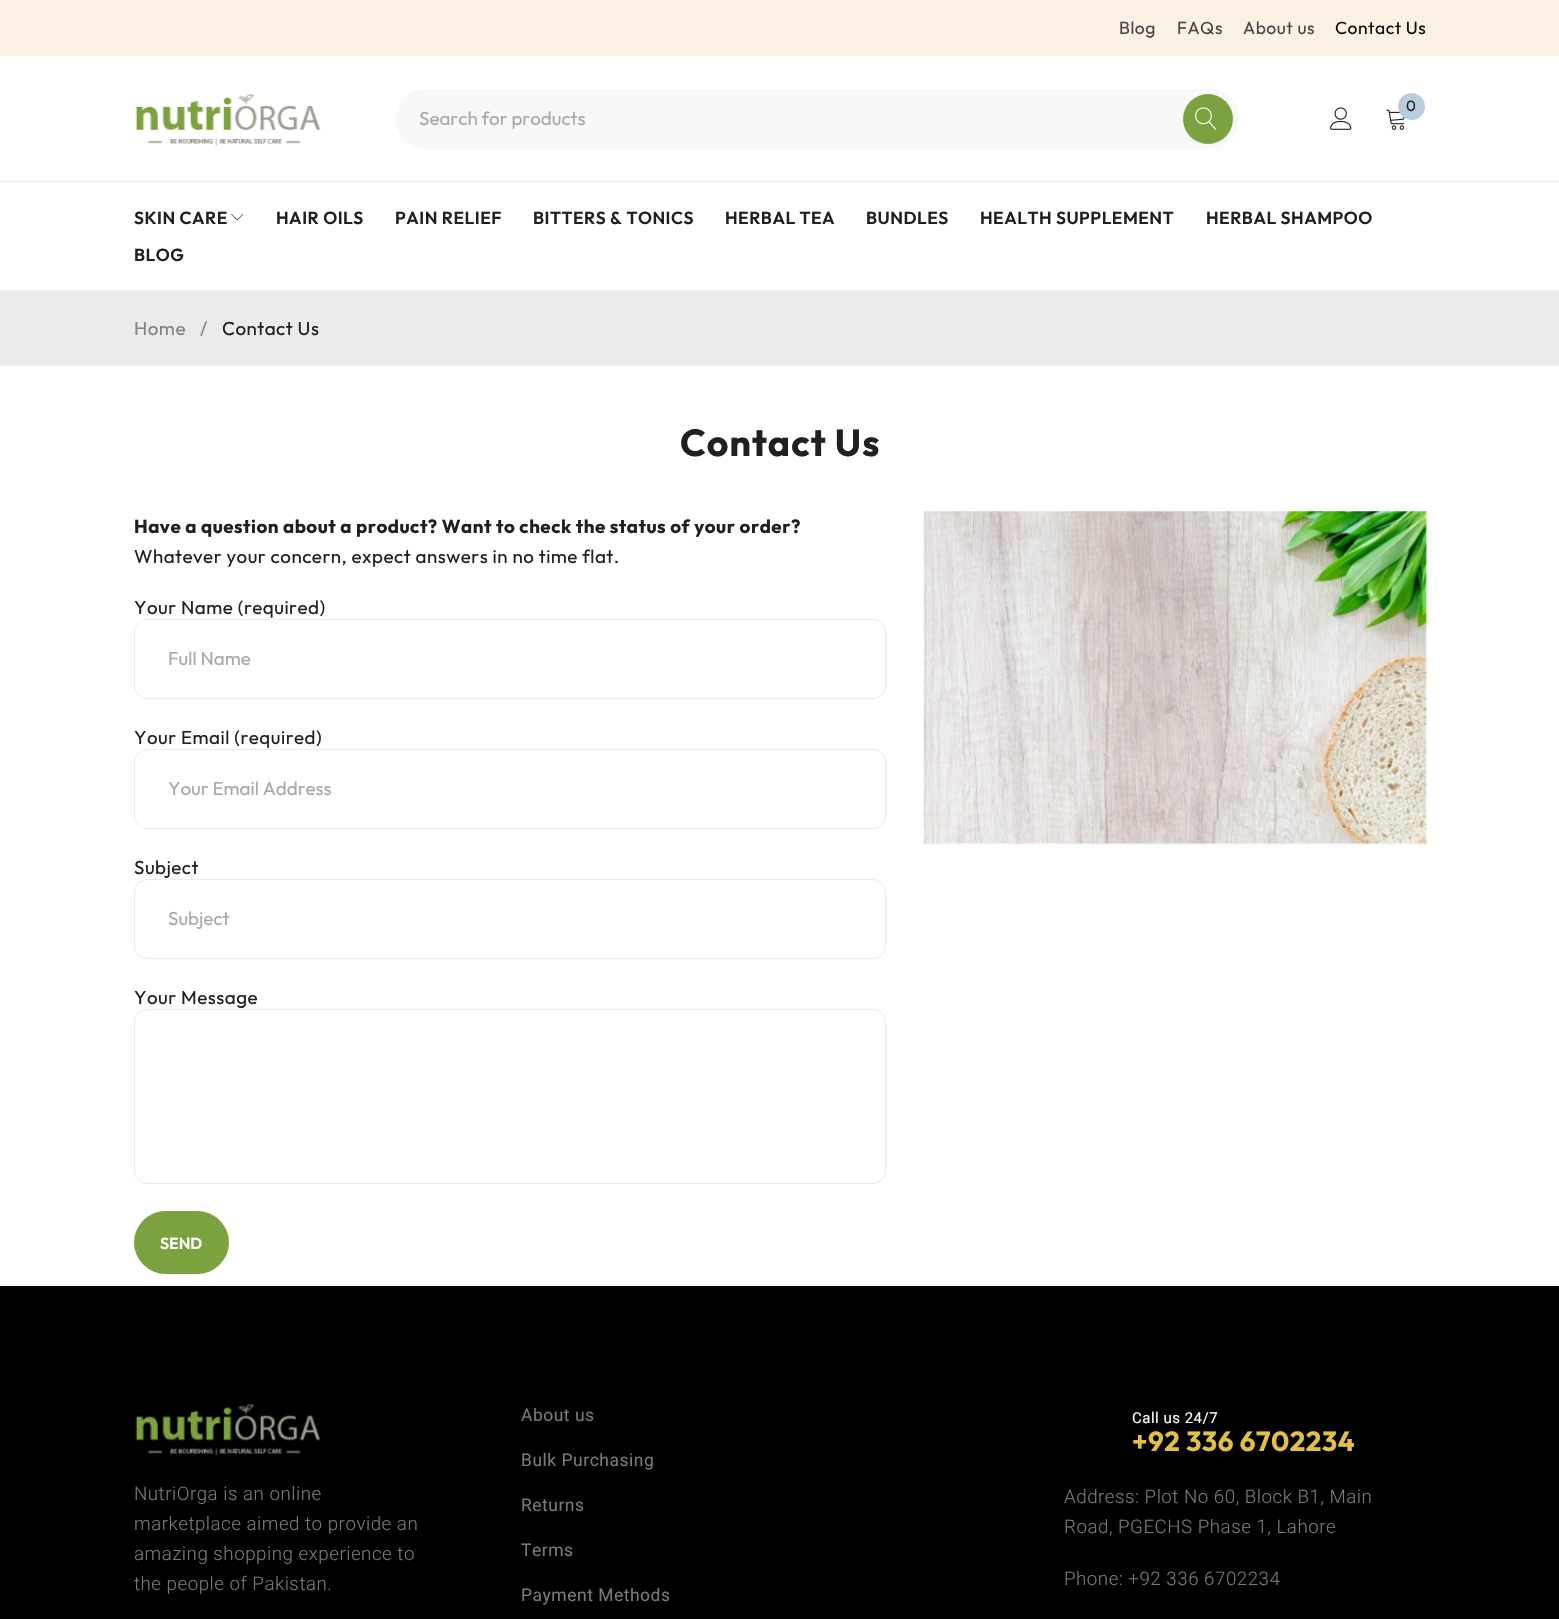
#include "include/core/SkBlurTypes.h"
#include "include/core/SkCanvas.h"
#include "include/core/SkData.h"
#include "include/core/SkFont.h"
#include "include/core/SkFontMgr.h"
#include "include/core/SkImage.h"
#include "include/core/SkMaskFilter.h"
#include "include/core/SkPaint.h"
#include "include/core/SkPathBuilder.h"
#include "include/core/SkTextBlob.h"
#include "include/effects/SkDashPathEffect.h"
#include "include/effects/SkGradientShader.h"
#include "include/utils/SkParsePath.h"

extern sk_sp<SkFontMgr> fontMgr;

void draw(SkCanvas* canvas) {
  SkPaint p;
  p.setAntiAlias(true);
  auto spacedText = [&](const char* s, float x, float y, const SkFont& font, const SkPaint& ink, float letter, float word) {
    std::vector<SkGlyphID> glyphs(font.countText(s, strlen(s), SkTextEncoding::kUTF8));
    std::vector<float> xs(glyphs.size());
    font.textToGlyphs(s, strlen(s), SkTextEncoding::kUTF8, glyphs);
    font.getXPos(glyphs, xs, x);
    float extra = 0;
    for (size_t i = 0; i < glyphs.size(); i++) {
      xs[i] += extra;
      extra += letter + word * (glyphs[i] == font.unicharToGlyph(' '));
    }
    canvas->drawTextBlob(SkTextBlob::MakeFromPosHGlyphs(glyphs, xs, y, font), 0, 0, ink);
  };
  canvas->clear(SK_ColorWHITE);
  p.setColor(SkColorSetRGB(250, 240, 228));
  canvas->drawRect(SkRect::MakeLTRB(0, 0, 1559, 56), p);
  p.setColor(SkColorSetRGB(235, 235, 235));
  canvas->drawRect(SkRect::MakeLTRB(0, 181, 1559, 182), p);
  canvas->drawImageRect(SkImages::DeferredFromEncodedData(SkData::MakeFromFileName("images/1.png")), SkRect::MakeLTRB(135, 94, 321, 146), SkSamplingOptions());
  canvas->drawImageRect(SkImages::DeferredFromEncodedData(SkData::MakeFromFileName("images/2.png")), SkRect::MakeLTRB(1330, 107, 1352, 130), SkSamplingOptions());
  canvas->drawImageRect(SkImages::DeferredFromEncodedData(SkData::MakeFromFileName("images/3.png")), SkRect::MakeLTRB(1386, 109, 1405, 130), SkSamplingOptions());
  p.setColor(SkColorSetRGB(185, 206, 218));
  canvas->drawCircle(1411.5f, 106.5f, 13.5f, p);
  p.setColor(SkColorSetRGB(248, 248, 248));
  canvas->drawRoundRect(SkRect::MakeLTRB(396, 89, 1239, 149), 30, 30, p);
  p.setColor(SkColorSetRGB(124, 161, 63));
  canvas->drawCircle(1208, 119, 25, p);
  canvas->drawImageRect(SkImages::DeferredFromEncodedData(SkData::MakeFromFileName("images/4.png")), SkRect::MakeLTRB(1195, 107, 1217, 130), SkSamplingOptions());
  canvas->drawImageRect(SkImages::DeferredFromEncodedData(SkData::MakeFromFileName("images/5.png")), SkRect::MakeLTRB(231, 214, 244, 221), SkSamplingOptions());
  p.setColor(SkColorSetRGB(235, 235, 235));
  canvas->drawRect(SkRect::MakeLTRB(0, 290, 1559, 366), p);
  p.setStyle(SkPaint::kStroke_Style);
  p.setStrokeWidth(1);
  canvas->drawRoundRect(SkRect::MakeLTRB(134.5f, 619.5f, 885.5f, 698.5f), 12.5f, 12.5f, p);
  canvas->drawRoundRect(SkRect::MakeLTRB(134.5f, 749.5f, 885.5f, 828.5f), 12.5f, 12.5f, p);
  canvas->drawRoundRect(SkRect::MakeLTRB(134.5f, 879.5f, 885.5f, 958.5f), 12.5f, 12.5f, p);
  canvas->drawRoundRect(SkRect::MakeLTRB(134.5f, 1009.5f, 885.5f, 1183.5f), 12.5f, 12.5f, p);
  p.setStyle(SkPaint::kFill_Style);
  p.setColor(SkColorSetRGB(124, 161, 63));
  canvas->drawRoundRect(SkRect::MakeLTRB(134.5f, 1211.5f, 228.5f, 1273.5f), 31, 31, p);
  p.setStyle(SkPaint::kStroke_Style);
  canvas->drawRoundRect(SkRect::MakeLTRB(134.5f, 1211.5f, 228.5f, 1273.5f), 31, 31, p);
  canvas->drawImageRect(SkImages::DeferredFromEncodedData(SkData::MakeFromFileName("images/6.png")), SkRect::MakeLTRB(923, 511, 1427, 845), SkSamplingOptions());
  p.setStyle(SkPaint::kFill_Style);
  p.setColor(SK_ColorBLACK);
  canvas->drawRect(SkRect::MakeLTRB(0, 1286, 1559, 1619), p);
  canvas->drawImageRect(SkImages::DeferredFromEncodedData(SkData::MakeFromFileName("images/7.png")), SkRect::MakeLTRB(135, 1403, 321, 1456), SkSamplingOptions());
  SkFont font1(fontMgr->matchFamilyStyle("Outfit", SkFontStyle::Normal()), 17.5f);
  font1.setSubpixel(true);
  p.setColor(SkColorSetRGB(71, 71, 71));
  spacedText("Blog", 1119, 34, font1, p, 0.5f, 0);
  spacedText("FAQs", 1177, 34, font1, p, 0.5f, 0);
  spacedText("About us", 1243, 34, font1, p, 0.5f, 0);
  p.setColor(SkColorSetRGB(14, 14, 14));
  spacedText("Contact Us", 1335, 34, font1, p, 0.5f, 0);
  SkFont font2(fontMgr->matchFamilyStyle("Outfit", SkFontStyle::Normal()), 15);
  font2.setSubpixel(true);
  p.setColor(SkColorSetRGB(32, 32, 32));
  spacedText("0", 1406, 111, font2, p, 0.5f, 0);
  SkFont font3(fontMgr->matchFamilyStyle("Outfit", SkFontStyle::Normal()), 18.75f);
  font3.setSubpixel(true);
  p.setColor(SkColorSetRGB(169, 169, 169));
  canvas->drawString("Search for products", 419, 125, font3, p);
  SkFont font4(fontMgr->matchFamilyStyle("Outfit", SkFontStyle(600, SkFontStyle::kNormal_Width, SkFontStyle::kUpright_Slant)), 17.5f);
  font4.setSubpixel(true);
  p.setColor(SkColorSetRGB(32, 32, 32));
  spacedText("SKIN CARE", 134, 224, font4, p, 0.5f, 0);
  spacedText("HAIR OILS", 276, 224, font4, p, 0.5f, 0);
  spacedText("PAIN RELIEF", 395, 224, font4, p, 0.5f, 0);
  spacedText("BITTERS & TONICS", 533, 224, font4, p, 0.5f, 0);
  spacedText("HERBAL TEA", 725, 224, font4, p, 0.5f, 0);
  spacedText("BUNDLES", 866, 224, font4, p, 0.5f, 0);
  spacedText("HEALTH SUPPLEMENT", 980, 224, font4, p, 0.5f, 0);
  spacedText("HERBAL SHAMPOO", 1206, 224, font4, p, 0.5f, 0);
  spacedText("BLOG", 134, 261, font4, p, 0.5f, 0);
  p.setColor(SkColorSetRGB(132, 132, 132));
  spacedText("Home", 134, 335, font3, p, 0.5f, 0);
  spacedText("/", 200, 335, font3, p, 0.5f, 0);
  p.setColor(SkColorSetRGB(32, 32, 32));
  spacedText("Contact Us", 222, 335, font3, p, 0.5f, 0);
  SkFont font5(fontMgr->matchFamilyStyle("Outfit", SkFontStyle::Bold()), 37.5f);
  font5.setSubpixel(true);
  spacedText("Contact Us", 680, 456, font5, p, 1, 0);
  SkFont font6(fontMgr->matchFamilyStyle("Outfit", SkFontStyle::Bold()), 18.75f);
  font6.setSubpixel(true);
  spacedText("Have a question about a product? Want to check the status of your order?", 134, 533, font6, p, 0.5f, 0);
  spacedText("Whatever your concern, expect answers in no time flat.", 134, 563, font3, p, 0.5f, 0);
  spacedText("Your Name (required)", 134, 614, font3, p, 0.5f, 0);
  p.setColor(SkColorSetRGB(169, 169, 169));
  canvas->drawString("Full Name", 168, 665, font3, p);
  p.setColor(SkColorSetRGB(32, 32, 32));
  spacedText("Your Email (required)", 134, 744, font3, p, 0.5f, 0);
  p.setColor(SkColorSetRGB(169, 169, 169));
  canvas->drawString("Your Email Address", 168, 795, font3, p);
  p.setColor(SkColorSetRGB(32, 32, 32));
  spacedText("Subject", 134, 874, font3, p, 0.5f, 0);
  p.setColor(SkColorSetRGB(169, 169, 169));
  canvas->drawString("Subject", 168, 925, font3, p);
  p.setColor(SkColorSetRGB(32, 32, 32));
  spacedText("Your Message", 134, 1004, font3, p, 0.5f, 0);
  SkFont font7(fontMgr->matchFamilyStyle("Outfit", SkFontStyle(600, SkFontStyle::kNormal_Width, SkFontStyle::kUpright_Slant)), 16);
  font7.setSubpixel(true);
  p.setColor(SK_ColorWHITE);
  canvas->drawString("SEND", 160, 1249, font7, p);
  SkFont font8(fontMgr->matchFamilyStyle("Roboto", SkFontStyle(300, SkFontStyle::kNormal_Width, SkFontStyle::kUpright_Slant)), 18.75f);
  font8.setSubpixel(true);
  p.setColor(SkColorSetRGB(122, 122, 122));
  spacedText("NutriOrga is an online", 134, 1500, font8, p, 0.5f, 0);
  spacedText("marketplace aimed to provide an", 134, 1530, font8, p, 0.5f, 0);
  spacedText("amazing shopping experience to", 134, 1560, font8, p, 0.5f, 0);
  spacedText("the people of Pakistan.", 134, 1590, font8, p, 0.5f, 0);
  SkFont font9(fontMgr->matchFamilyStyle("Roboto", SkFontStyle::Normal()), 17.5f);
  font9.setSubpixel(true);
  spacedText("About us", 521, 1421, font9, p, 0.5f, 0);
  spacedText("Bulk Purchasing", 521, 1466, font9, p, 0.5f, 0);
  spacedText("Returns", 521, 1511, font9, p, 0.5f, 0);
  spacedText("Terms", 521, 1556, font9, p, 0.5f, 0);
  spacedText("Payment Methods", 521, 1601, font9, p, 0.5f, 0);
  SkFont font10(fontMgr->matchFamilyStyle("Roboto", SkFontStyle::Normal()), 15);
  font10.setSubpixel(true);
  p.setColor(SK_ColorWHITE);
  spacedText("Call us 24/7", 1132, 1423, font10, p, 0.5f, 0);
  SkFont font11(fontMgr->matchFamilyStyle("Outfit", SkFontStyle::Bold()), 27.5f);
  font11.setSubpixel(true);
  p.setColor(SkColorSetRGB(226, 192, 68));
  spacedText("+92 336 6702234", 1132, 1451, font11, p, 0.5f, 0);
  p.setColor(SkColorSetRGB(122, 122, 122));
  spacedText("Address: Plot No 60, Block B1, Main", 1064, 1503, font8, p, 0.5f, 0);
  spacedText("Road, PGECHS Phase 1, Lahore", 1064, 1533, font8, p, 0.5f, 0);
  spacedText("Phone: +92 336 6702234", 1064, 1585, font8, p, 0.5f, 0);
}
